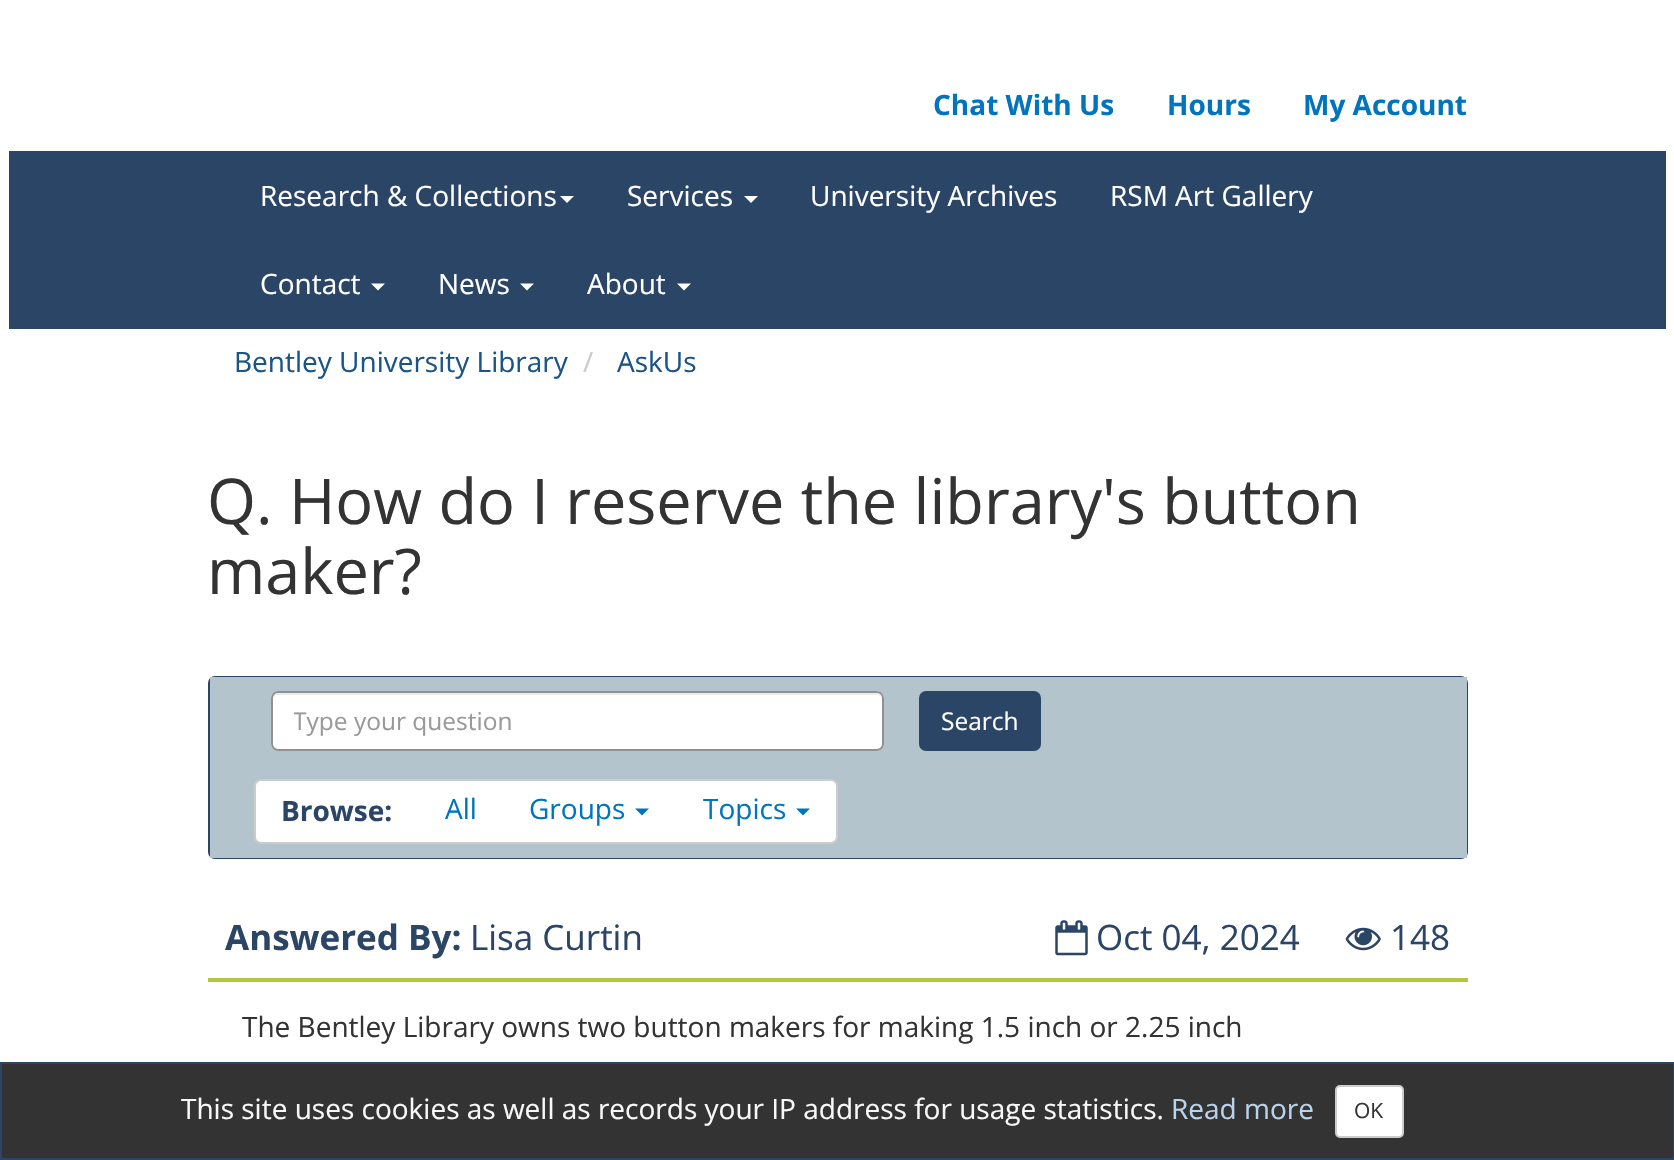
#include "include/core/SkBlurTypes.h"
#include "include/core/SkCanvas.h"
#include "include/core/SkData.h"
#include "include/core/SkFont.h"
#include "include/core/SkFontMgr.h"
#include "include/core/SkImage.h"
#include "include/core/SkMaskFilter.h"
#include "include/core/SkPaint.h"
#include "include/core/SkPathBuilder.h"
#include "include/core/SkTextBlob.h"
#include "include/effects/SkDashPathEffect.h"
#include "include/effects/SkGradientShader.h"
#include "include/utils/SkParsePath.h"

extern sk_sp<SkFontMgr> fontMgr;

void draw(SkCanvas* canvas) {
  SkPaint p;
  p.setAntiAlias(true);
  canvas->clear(SK_ColorWHITE);
  p.setColor(SkColorSetRGB(43, 69, 102));
  canvas->drawRect(SkRect::MakeLTRB(9, 151, 1666, 329), p);
  p.setColor(SK_ColorWHITE);
  canvas->drawPath(SkPathBuilder().moveTo(560, 196).lineTo(574, 196).lineTo(567, 203).close().detach(), p);
  canvas->drawPath(SkPathBuilder().moveTo(744, 196).lineTo(758, 196).lineTo(751, 203).close().detach(), p);
  canvas->drawPath(SkPathBuilder().moveTo(371, 283.5f).lineTo(385, 283.5f).lineTo(378, 290.5f).close().detach(), p);
  canvas->drawPath(SkPathBuilder().moveTo(520, 283.5f).lineTo(534, 283.5f).lineTo(527, 290.5f).close().detach(), p);
  canvas->drawPath(SkPathBuilder().moveTo(677, 283.5f).lineTo(691, 283.5f).lineTo(684, 290.5f).close().detach(), p);
  p.setStyle(SkPaint::kStroke_Style);
  p.setStrokeWidth(2);
  p.setColor(SkColorSetRGB(43, 69, 102));
  canvas->drawRoundRect(SkRect::MakeLTRB(209, 677, 1467, 858), 6, 6, p);
  p.setStyle(SkPaint::kFill_Style);
  p.setColor(SkColorSetRGB(179, 196, 204));
  canvas->drawRect(SkRect::MakeLTRB(210, 677, 1467, 858), p);
  p.setColor(SK_ColorWHITE);
  canvas->drawRoundRect(SkRect::MakeLTRB(271, 691, 884, 751), 7, 7, p);
  p.setColor(SkColorSetRGB(236, 236, 236));
  canvas->drawPath(SkPathBuilder().moveTo(278, 695).lineTo(877, 695).cubicTo(880, 695, 882, 697, 882, 700).cubicTo(882, 697, 881, 693, 877, 693).lineTo(278, 693).cubicTo(274, 693, 273, 697, 273, 700).cubicTo(273, 697, 275, 695, 278, 695).close().detach(), p);
  p.setStyle(SkPaint::kStroke_Style);
  p.setColor(SkColorSetRGB(145, 145, 145));
  canvas->drawRoundRect(SkRect::MakeLTRB(272, 692, 883, 750), 6, 6, p);
  p.setStyle(SkPaint::kFill_Style);
  p.setColor(SkColorSetRGB(43, 69, 102));
  canvas->drawRoundRect(SkRect::MakeLTRB(920, 692, 1040, 750), 6, 6, p);
  p.setStyle(SkPaint::kStroke_Style);
  canvas->drawRoundRect(SkRect::MakeLTRB(920, 692, 1040, 750), 6, 6, p);
  p.setStyle(SkPaint::kFill_Style);
  p.setColor(SK_ColorWHITE);
  canvas->drawRoundRect(SkRect::MakeLTRB(255, 780, 837, 843), 6, 6, p);
  p.setStyle(SkPaint::kStroke_Style);
  p.setColor(SkColorSetRGB(204, 204, 204));
  canvas->drawRoundRect(SkRect::MakeLTRB(255, 780, 837, 843), 6, 6, p);
  p.setStyle(SkPaint::kFill_Style);
  p.setColor(SkColorSetRGB(0, 117, 190));
  canvas->drawPath(SkPathBuilder().moveTo(635, 808.5f).lineTo(649, 808.5f).lineTo(642, 815.5f).close().detach(), p);
  canvas->drawPath(SkPathBuilder().moveTo(796, 808.5f).lineTo(810, 808.5f).lineTo(803, 815.5f).close().detach(), p);
  p.setColor(SkColorSetRGB(179, 198, 66));
  canvas->drawRect(SkRect::MakeLTRB(208, 978, 1468, 982), p);
  canvas->drawImageRect(SkImages::DeferredFromEncodedData(SkData::MakeFromFileName("images/1.png")), SkRect::MakeLTRB(1055, 920, 1088, 956), SkSamplingOptions());
  canvas->drawImageRect(SkImages::DeferredFromEncodedData(SkData::MakeFromFileName("images/2.png")), SkRect::MakeLTRB(1345, 927, 1381, 951), SkSamplingOptions());
  p.setColor(SkColorSetRGB(51, 51, 51));
  canvas->drawRect(SkRect::MakeLTRB(1, 1063, 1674, 1159), p);
  p.setStyle(SkPaint::kStroke_Style);
  p.setColor(SkColorSetRGB(43, 69, 102));
  canvas->drawRect(SkRect::MakeLTRB(1, 1063, 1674, 1159), p);
  p.setStyle(SkPaint::kFill_Style);
  p.setColor(SK_ColorWHITE);
  canvas->drawRoundRect(SkRect::MakeLTRB(1336, 1086, 1403, 1137), 4, 4, p);
  p.setStyle(SkPaint::kStroke_Style);
  p.setColor(SkColorSetRGB(204, 204, 204));
  canvas->drawRoundRect(SkRect::MakeLTRB(1336, 1086, 1403, 1137), 4, 4, p);
  SkFont font1(fontMgr->matchFamilyStyle("Open Sans", SkFontStyle::Bold()), 28);
  font1.setSubpixel(true);
  p.setStyle(SkPaint::kFill_Style);
  p.setColor(SkColorSetRGB(0, 117, 190));
  canvas->drawString("Chat With Us", 933, 115, font1, p);
  canvas->drawString("Hours", 1167, 115, font1, p);
  canvas->drawString("My Account", 1303, 115, font1, p);
  SkFont font2(fontMgr->matchFamilyStyle("Open Sans", SkFontStyle::Normal()), 28);
  font2.setSubpixel(true);
  p.setColor(SK_ColorWHITE);
  canvas->drawString("Research & Collections", 260, 206, font2, p);
  canvas->drawString("Services", 627, 206, font2, p);
  canvas->drawString("University Archives", 810, 206, font2, p);
  canvas->drawString("RSM Art Gallery", 1110, 206, font2, p);
  canvas->drawString("Contact", 260, 294, font2, p);
  canvas->drawString("News", 438, 294, font2, p);
  canvas->drawString("About", 587, 294, font2, p);
  p.setColor(SkColorSetRGB(26, 85, 136));
  canvas->drawString("Bentley University Library", 234, 372, font2, p);
  p.setColor(SkColorSetRGB(204, 204, 204));
  canvas->drawString("/", 583, 372, font2, p);
  p.setColor(SkColorSetRGB(26, 85, 136));
  canvas->drawString("AskUs", 617, 372, font2, p);
  SkFont font3(fontMgr->matchFamilyStyle("Open Sans", SkFontStyle::Normal()), 63);
  font3.setSubpixel(true);
  p.setColor(SkColorSetRGB(51, 51, 51));
  canvas->drawString("Q. How do I reserve the library's button", 207, 524, font3, p);
  canvas->drawString("maker?", 207, 594, font3, p);
  canvas->save();
  canvas->clipRect(SkRect::MakeLTRB(294, 704, 861, 737));
  SkFont font4(fontMgr->matchFamilyStyle("Open Sans", SkFontStyle::Normal()), 24.5f);
  font4.setSubpixel(true);
  p.setColor(SkColorSetRGB(153, 153, 153));
  canvas->drawString("Type your question", 293, 730, font4, p);
  canvas->restore();
  p.setColor(SK_ColorWHITE);
  canvas->drawString("Search", 941, 730, font4, p);
  p.setColor(SkColorSetRGB(43, 69, 102));
  canvas->drawString("Browse:", 281, 821, font1, p);
  p.setColor(SkColorSetRGB(0, 117, 190));
  canvas->drawString("All", 445, 819, font2, p);
  canvas->drawString("Groups", 529, 819, font2, p);
  canvas->drawString("Topics", 703, 819, font2, p);
  SkFont font5(fontMgr->matchFamilyStyle("Open Sans", SkFontStyle::Bold()), 35);
  font5.setSubpixel(true);
  p.setColor(SkColorSetRGB(43, 69, 102));
  canvas->drawString("Answered By:", 225, 950, font5, p);
  SkFont font6(fontMgr->matchFamilyStyle("Open Sans", SkFontStyle::Normal()), 35);
  font6.setSubpixel(true);
  canvas->drawString("Lisa Curtin", 470, 950, font6, p);
  canvas->drawString("Oct 04, 2024", 1096, 950, font6, p);
  canvas->drawString("148", 1390, 950, font6, p);
  p.setColor(SkColorSetRGB(51, 51, 51));
  canvas->drawString("The Bentley Library owns two button makers for making 1.5 inch or 2.25 inch", 242, 1037, font2, p);
  p.setColor(SkColorSetRGB(248, 248, 248));
  canvas->drawString("This site uses cookies as well as records your IP address for usage statistics.", 181, 1119, font2, p);
  p.setColor(SkColorSetRGB(185, 211, 235));
  canvas->drawString("Read more", 1171, 1119, font2, p);
  SkFont font7(fontMgr->matchFamilyStyle("Open Sans", SkFontStyle::Normal()), 21);
  font7.setSubpixel(true);
  p.setColor(SkColorSetRGB(51, 51, 51));
  canvas->drawString("OK", 1354, 1118, font7, p);
}
